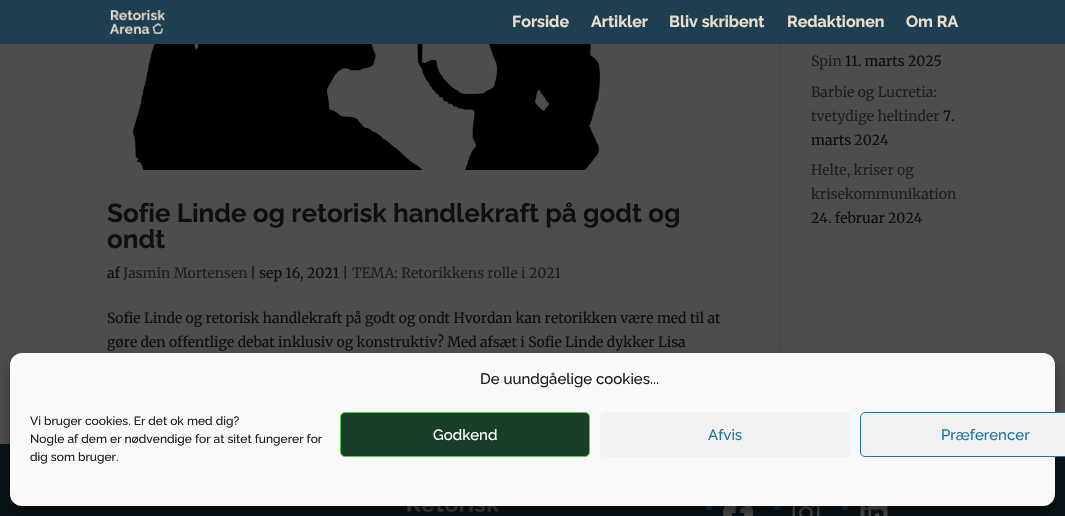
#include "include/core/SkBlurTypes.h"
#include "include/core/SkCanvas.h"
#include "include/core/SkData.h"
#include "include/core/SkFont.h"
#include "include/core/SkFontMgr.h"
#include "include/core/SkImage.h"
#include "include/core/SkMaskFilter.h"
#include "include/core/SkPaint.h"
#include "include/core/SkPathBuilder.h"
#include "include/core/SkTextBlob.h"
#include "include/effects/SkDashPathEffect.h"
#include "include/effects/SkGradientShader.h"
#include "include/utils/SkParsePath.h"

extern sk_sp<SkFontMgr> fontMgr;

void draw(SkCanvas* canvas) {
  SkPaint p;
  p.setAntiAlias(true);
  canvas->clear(SkColorSetRGB(77, 77, 77));
  p.setColor(SkColorSetRGB(29, 63, 81));
  canvas->drawRect(SkRect::MakeLTRB(0, 0, 1065, 44), p);
  canvas->drawImageRect(SkImages::DeferredFromEncodedData(SkData::MakeFromFileName("images/1.png")), SkRect::MakeLTRB(110, 10, 165, 34), SkSamplingOptions());
  p.setColor(SkColorSetRGB(68, 68, 68));
  canvas->drawRect(SkRect::MakeLTRB(780, 44, 781, 353), p);
  canvas->drawImageRect(SkImages::DeferredFromEncodedData(SkData::MakeFromFileName("images/2.png")), SkRect::MakeLTRB(132, 44, 601, 170), SkSamplingOptions());
  p.setColor(SkColorSetRGB(9, 19, 24));
  canvas->drawRect(SkRect::MakeLTRB(0, 444, 1065, 516), p);
  canvas->drawImageRect(SkImages::DeferredFromEncodedData(SkData::MakeFromFileName("images/3.png")), SkRect::MakeLTRB(407, 506, 499, 513), SkSamplingOptions());
  p.setColor(SkColorSetRGB(14, 49, 73));
  canvas->drawCircle(709, 507, 3, p);
  canvas->drawImageRect(SkImages::DeferredFromEncodedData(SkData::MakeFromFileName("images/4.png")), SkRect::MakeLTRB(723, 506, 753, 516), SkSamplingOptions());
  canvas->drawCircle(777, 507, 3, p);
  canvas->drawImageRect(SkImages::DeferredFromEncodedData(SkData::MakeFromFileName("images/5.png")), SkRect::MakeLTRB(792, 506, 820, 516), SkSamplingOptions());
  canvas->drawCircle(845, 507, 3, p);
  canvas->drawImageRect(SkImages::DeferredFromEncodedData(SkData::MakeFromFileName("images/6.png")), SkRect::MakeLTRB(860, 506, 888, 516), SkSamplingOptions());
  p.setColor(SkColorSetARGB(59, 0, 0, 0));
  p.setMaskFilter(SkMaskFilter::MakeBlur(kNormal_SkBlurStyle, 3));
  canvas->drawRoundRect(SkRect::MakeLTRB(10, 359, 1055, 512), 12, 12, p);
  p.setMaskFilter(nullptr);
  p.setColor(SkColorSetARGB(48, 0, 0, 0));
  p.setMaskFilter(SkMaskFilter::MakeBlur(kNormal_SkBlurStyle, 10));
  canvas->drawRoundRect(SkRect::MakeLTRB(10, 363, 1055, 516), 12, 12, p);
  p.setMaskFilter(nullptr);
  p.setColor(SkColorSetRGB(249, 249, 249));
  canvas->drawRoundRect(SkRect::MakeLTRB(10, 353, 1055, 506), 12, 12, p);
  p.setColor(SkColorSetRGB(26, 61, 40));
  canvas->drawRoundRect(SkRect::MakeLTRB(340.5f, 412.5f, 589.5f, 456.5f), 4.5f, 4.5f, p);
  p.setStyle(SkPaint::kStroke_Style);
  p.setStrokeWidth(1);
  p.setColor(SkColorSetRGB(82, 204, 63));
  canvas->drawRoundRect(SkRect::MakeLTRB(340.5f, 412.5f, 589.5f, 456.5f), 4.5f, 4.5f, p);
  p.setStyle(SkPaint::kFill_Style);
  p.setColor(SkColorSetRGB(241, 241, 241));
  canvas->drawRoundRect(SkRect::MakeLTRB(600, 412, 850, 457), 5, 5, p);
  canvas->drawRoundRect(SkRect::MakeLTRB(860.5f, 412.5f, 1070.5f, 456.5f), 4.5f, 4.5f, p);
  p.setStyle(SkPaint::kStroke_Style);
  p.setColor(SkColorSetRGB(33, 117, 155));
  canvas->drawRoundRect(SkRect::MakeLTRB(860.5f, 412.5f, 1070.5f, 456.5f), 4.5f, 4.5f, p);
  SkFont font1(fontMgr->matchFamilyStyle("Raleway", SkFontStyle(100, SkFontStyle::kNormal_Width, SkFontStyle::kUpright_Slant)), 16);
  font1.setSubpixel(true);
  p.setStyle(SkPaint::kFill_Style);
  p.setColor(SkColorSetRGB(235, 224, 204));
  canvas->drawString("Forside", 512, 27, font1, p);
  canvas->drawString("Artikler", 591, 27, font1, p);
  canvas->drawString("Bliv skribent", 669, 27, font1, p);
  canvas->drawString("Redaktionen", 787, 27, font1, p);
  canvas->drawString("Om RA", 906, 27, font1, p);
  SkFont font2(fontMgr->matchFamilyStyle("Merriweather", SkFontStyle(300, SkFontStyle::kNormal_Width, SkFontStyle::kUpright_Slant)), 14);
  font2.setSubpixel(true);
  p.setColor(SkColorSetRGB(31, 31, 31));
  canvas->drawString("Spin", 811, 66, font2, p);
  p.setColor(SkColorSetRGB(15, 15, 15));
  canvas->drawString("11. marts 2025", 845, 66, font2, p);
  p.setColor(SkColorSetRGB(31, 31, 31));
  canvas->drawString("Barbie og Lucretia:", 811, 97, font2, p);
  canvas->drawString("tvetydige heltinder", 811, 121, font2, p);
  p.setColor(SkColorSetRGB(15, 15, 15));
  canvas->drawString("7.", 943, 121, font2, p);
  canvas->drawString("marts 2024", 811, 145, font2, p);
  p.setColor(SkColorSetRGB(31, 31, 31));
  canvas->drawString("Helte, kriser og", 811, 175, font2, p);
  canvas->drawString("krisekommunikation", 811, 199, font2, p);
  p.setColor(SkColorSetRGB(15, 15, 15));
  canvas->drawString("24. februar 2024", 811, 223, font2, p);
  SkFont font3(fontMgr->matchFamilyStyle("Raleway", SkFontStyle(100, SkFontStyle::kNormal_Width, SkFontStyle::kUpright_Slant)), 26);
  font3.setSubpixel(true);
  canvas->drawString("Sofie Linde og retorisk handlekraft på godt og", 107, 222, font3, p);
  canvas->drawString("ondt", 107, 248, font3, p);
  canvas->drawString("af", 107, 278, font2, p);
  p.setColor(SkColorSetRGB(31, 31, 31));
  canvas->drawString("Jasmin Mortensen", 123, 278, font2, p);
  p.setColor(SkColorSetRGB(15, 15, 15));
  canvas->drawString("| sep 16, 2021 |", 250, 278, font2, p);
  p.setColor(SkColorSetRGB(31, 31, 31));
  canvas->drawString("TEMA: Retorikkens rolle i 2021", 352, 278, font2, p);
  p.setColor(SkColorSetRGB(15, 15, 15));
  canvas->drawString("Sofie Linde og retorisk handlekraft på godt og ondt Hvordan kan retorikken være med til at", 107, 323, font2, p);
  canvas->drawString("gøre den offentlige debat inklusiv og konstruktiv? Med afsæt i Sofie Linde dykker Lisa", 107, 347, font2, p);
  SkFont font4(fontMgr->matchFamilyStyle("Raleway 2", SkFontStyle(100, SkFontStyle::kNormal_Width, SkFontStyle::kUpright_Slant)), 15);
  font4.setSubpixel(true);
  p.setColor(SkColorSetRGB(25, 30, 35));
  canvas->drawString("De uundgåelige cookies...", 480, 384, font4, p);
  SkFont font5(fontMgr->matchFamilyStyle("Raleway 2", SkFontStyle(100, SkFontStyle::kNormal_Width, SkFontStyle::kUpright_Slant)), 12);
  font5.setSubpixel(true);
  canvas->drawString("Vi bruger cookies. Er det ok med dig?", 30, 425, font5, p);
  canvas->drawString("Nogle af dem er nødvendige for at sitet fungerer for", 30, 443, font5, p);
  canvas->drawString("dig som bruger.", 30, 461, font5, p);
  p.setColor(SK_ColorWHITE);
  canvas->drawString("Godkend", 433, 440, font4, p);
  p.setColor(SkColorSetRGB(33, 117, 155));
  canvas->drawString("Afvis", 708, 440, font4, p);
  canvas->drawString("Præferencer", 941, 440, font4, p);
}
